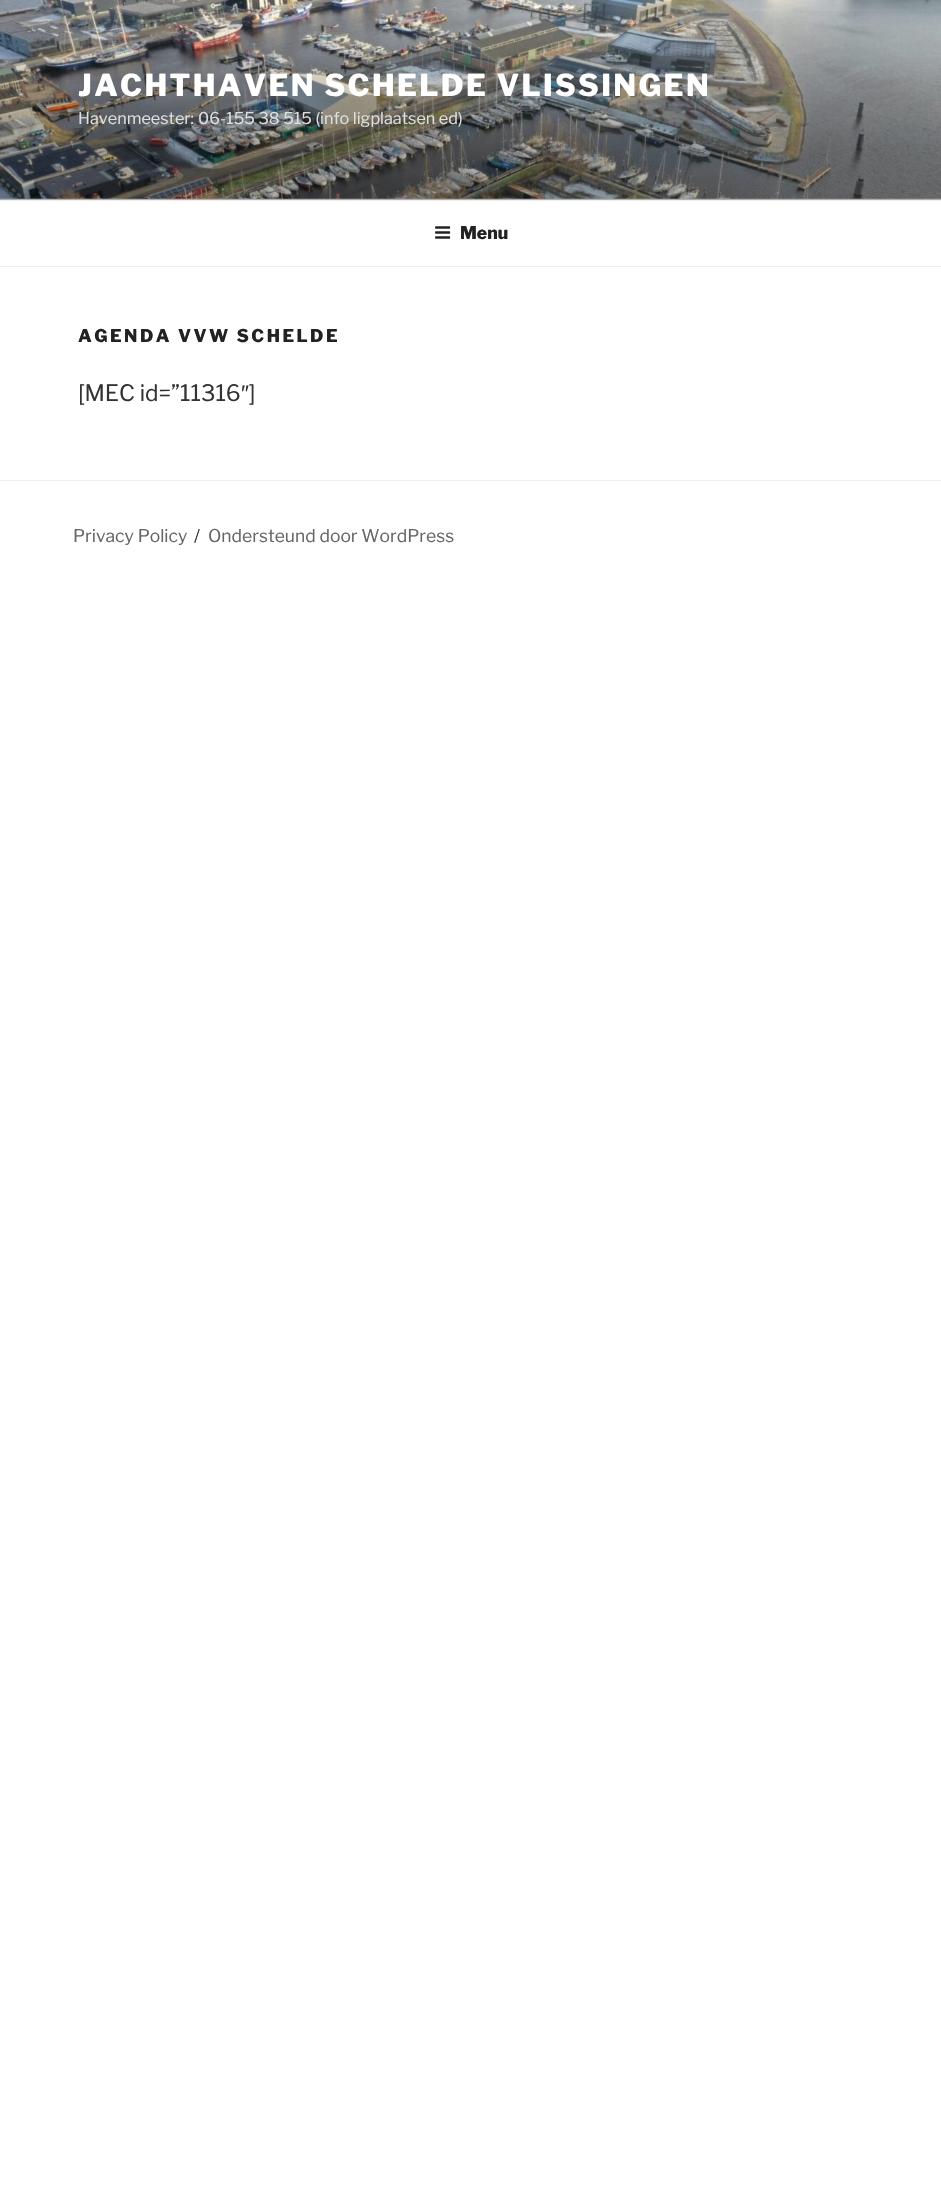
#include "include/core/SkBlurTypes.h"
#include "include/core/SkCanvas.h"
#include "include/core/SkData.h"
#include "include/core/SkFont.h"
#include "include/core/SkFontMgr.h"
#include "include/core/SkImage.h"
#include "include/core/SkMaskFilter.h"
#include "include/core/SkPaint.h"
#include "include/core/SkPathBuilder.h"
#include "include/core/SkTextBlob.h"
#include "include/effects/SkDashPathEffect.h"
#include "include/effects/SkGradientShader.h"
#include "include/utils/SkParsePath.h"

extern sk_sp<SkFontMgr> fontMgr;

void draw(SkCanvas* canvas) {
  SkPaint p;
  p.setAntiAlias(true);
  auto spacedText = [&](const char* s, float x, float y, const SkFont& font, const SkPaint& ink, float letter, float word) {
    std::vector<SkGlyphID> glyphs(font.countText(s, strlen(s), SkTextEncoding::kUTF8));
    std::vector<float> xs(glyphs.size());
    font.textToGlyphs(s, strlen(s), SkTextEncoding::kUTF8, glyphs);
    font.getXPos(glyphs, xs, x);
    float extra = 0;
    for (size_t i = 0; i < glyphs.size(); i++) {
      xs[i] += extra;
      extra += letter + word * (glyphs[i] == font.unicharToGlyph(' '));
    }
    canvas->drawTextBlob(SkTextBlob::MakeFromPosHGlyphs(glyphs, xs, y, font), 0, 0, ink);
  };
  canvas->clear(SK_ColorWHITE);
  p.setColor(SkColorSetRGB(250, 250, 250));
  canvas->drawRect(SkRect::MakeLTRB(0, 198, 941, 200), p);
  canvas->drawImageRect(SkImages::DeferredFromEncodedData(SkData::MakeFromFileName("images/1.png")), SkRect::MakeLTRB(0, 0, 941, 199), SkSamplingOptions());
  {
    const SkColor colors[] = {SkColorSetARGB(0, 0, 0, 0), SkColorSetARGB(77, 0, 0, 0), SkColorSetARGB(77, 0, 0, 0)};
    const float stops[] = {0, 0.75f, 1};
    const SkPoint ends[] = {{471, 0}, {471, 200}};
    p.setShader(SkGradientShader::MakeLinear(ends, colors, stops, 3, SkTileMode::kClamp));
    p.setAlpha(255);
  }
  canvas->drawRect(SkRect::MakeLTRB(0, 11, 941, 200), p);
  p.setShader(nullptr);
  p.setColor(SkColorSetRGB(238, 238, 238));
  canvas->drawRect(SkRect::MakeLTRB(0, 200, 941, 201), p);
  canvas->drawRect(SkRect::MakeLTRB(0, 266, 941, 267), p);
  canvas->drawImageRect(SkImages::DeferredFromEncodedData(SkData::MakeFromFileName("images/2.png")), SkRect::MakeLTRB(435, 226, 451, 239), SkSamplingOptions());
  canvas->drawRect(SkRect::MakeLTRB(0, 480, 941, 481), p);
  SkFont font1(fontMgr->matchFamilyStyle("Libre Franklin", SkFontStyle(100, SkFontStyle::kNormal_Width, SkFontStyle::kUpright_Slant)), 30);
  font1.setSubpixel(true);
  p.setColor(SK_ColorWHITE);
  spacedText("JACHTHAVEN SCHELDE VLISSINGEN", 78, 96, font1, p, 2.4f, 0);
  SkFont font2(fontMgr->matchFamilyStyle("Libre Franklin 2", SkFontStyle(100, SkFontStyle::kNormal_Width, SkFontStyle::kUpright_Slant)), 16.25f);
  font2.setSubpixel(true);
  p.setColor(SkColorSetRGB(222, 223, 223));
  canvas->drawString("Havenmeester:", 78, 124, font2, p);
  canvas->drawString("06-155 38 515 (info ligplaatsen ed)", 198, 124, font2, p);
  SkFont font3(fontMgr->matchFamilyStyle("Libre Franklin", SkFontStyle(100, SkFontStyle::kNormal_Width, SkFontStyle::kUpright_Slant)), 17.5f);
  font3.setSubpixel(true);
  p.setColor(SkColorSetRGB(34, 34, 34));
  canvas->drawString("Menu", 460, 239, font3, p);
  spacedText("AGENDA VVW SCHELDE", 78, 342, font3, p, 2.5f, 0);
  SkFont font4(fontMgr->matchFamilyStyle("Libre Franklin 2", SkFontStyle(100, SkFontStyle::kNormal_Width, SkFontStyle::kUpright_Slant)), 22.5f);
  font4.setSubpixel(true);
  p.setColor(SkColorSetRGB(51, 51, 51));
  canvas->drawString("[MEC id=”11316", 78, 401, font4, p);
  SkFont font5(fontMgr->matchFamilyStyle("Liberation Sans", SkFontStyle::Normal()), 22.5f);
  font5.setSubpixel(true);
  canvas->drawString("″", 241, 401, font5, p);
  canvas->drawString("]", 249, 401, font4, p);
  SkFont font6(fontMgr->matchFamilyStyle("Libre Franklin 2", SkFontStyle(100, SkFontStyle::kNormal_Width, SkFontStyle::kUpright_Slant)), 17.5f);
  font6.setSubpixel(true);
  p.setColor(SkColorSetRGB(102, 102, 102));
  canvas->drawString("Privacy Policy", 73, 542, font6, p);
  p.setColor(SkColorSetRGB(51, 51, 51));
  canvas->drawString("/", 194, 542, font6, p);
  p.setColor(SkColorSetRGB(102, 102, 102));
  canvas->drawString("Ondersteund door WordPress", 208, 542, font6, p);
}
